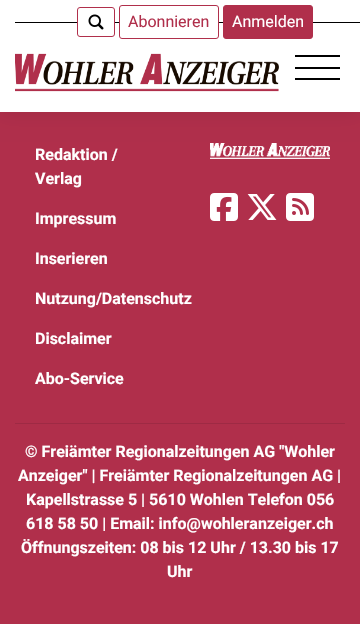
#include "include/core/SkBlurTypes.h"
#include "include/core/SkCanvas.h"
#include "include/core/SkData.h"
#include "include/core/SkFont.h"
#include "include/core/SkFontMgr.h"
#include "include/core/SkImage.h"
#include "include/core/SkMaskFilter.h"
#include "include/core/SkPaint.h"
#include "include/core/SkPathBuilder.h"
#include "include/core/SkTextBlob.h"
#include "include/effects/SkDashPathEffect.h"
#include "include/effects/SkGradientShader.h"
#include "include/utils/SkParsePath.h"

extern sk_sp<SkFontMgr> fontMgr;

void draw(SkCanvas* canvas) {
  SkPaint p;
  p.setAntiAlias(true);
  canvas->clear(SkColorSetRGB(176, 47, 75));
  p.setColor(SkColorSetARGB(26, 0, 0, 0));
  p.setMaskFilter(SkMaskFilter::MakeBlur(kNormal_SkBlurStyle, 10));
  canvas->drawRect(SkRect::MakeLTRB(0, 0, 360, 112), p);
  p.setMaskFilter(nullptr);
  p.setColor(SK_ColorWHITE);
  canvas->drawRect(SkRect::MakeLTRB(0, 0, 360, 112), p);
  p.setColor(SK_ColorBLACK);
  canvas->drawRect(SkRect::MakeLTRB(15, 22, 360, 23), p);
  p.setColor(SK_ColorWHITE);
  canvas->drawRoundRect(SkRect::MakeLTRB(77.5f, 7.5f, 114.5f, 36.5f), 2.5f, 2.5f, p);
  p.setStyle(SkPaint::kStroke_Style);
  p.setStrokeWidth(1);
  p.setColor(SkColorSetRGB(176, 47, 75));
  canvas->drawRoundRect(SkRect::MakeLTRB(77.5f, 7.5f, 114.5f, 36.5f), 2.5f, 2.5f, p);
  canvas->drawImageRect(SkImages::DeferredFromEncodedData(SkData::MakeFromFileName("images/1.png")), SkRect::MakeLTRB(88, 14, 104, 30), SkSamplingOptions());
  p.setStyle(SkPaint::kFill_Style);
  p.setColor(SK_ColorWHITE);
  canvas->drawRoundRect(SkRect::MakeLTRB(119.5f, 5.5f, 218.5f, 38.5f), 2.5f, 2.5f, p);
  p.setStyle(SkPaint::kStroke_Style);
  p.setColor(SkColorSetRGB(176, 47, 75));
  canvas->drawRoundRect(SkRect::MakeLTRB(119.5f, 5.5f, 218.5f, 38.5f), 2.5f, 2.5f, p);
  p.setStyle(SkPaint::kFill_Style);
  canvas->drawRoundRect(SkRect::MakeLTRB(223.5f, 5.5f, 312.5f, 38.5f), 2.5f, 2.5f, p);
  p.setStyle(SkPaint::kStroke_Style);
  canvas->drawRoundRect(SkRect::MakeLTRB(223.5f, 5.5f, 312.5f, 38.5f), 2.5f, 2.5f, p);
  canvas->drawImageRect(SkImages::DeferredFromEncodedData(SkData::MakeFromFileName("images/2.png")), SkRect::MakeLTRB(15, 53, 279, 92), SkSamplingOptions());
  p.setStyle(SkPaint::kFill_Style);
  p.setColor(SK_ColorBLACK);
  canvas->drawRect(SkRect::MakeLTRB(295, 55, 340, 57), p);
  canvas->drawRect(SkRect::MakeLTRB(295, 67, 340, 69), p);
  canvas->drawRect(SkRect::MakeLTRB(295, 78, 340, 80), p);
  canvas->drawImageRect(SkImages::DeferredFromEncodedData(SkData::MakeFromFileName("images/3.png")), SkRect::MakeLTRB(210, 143, 330, 159), SkSamplingOptions());
  canvas->drawImageRect(SkImages::DeferredFromEncodedData(SkData::MakeFromFileName("images/4.png")), SkRect::MakeLTRB(210, 193, 238, 221), SkSamplingOptions());
  canvas->drawImageRect(SkImages::DeferredFromEncodedData(SkData::MakeFromFileName("images/5.png")), SkRect::MakeLTRB(247, 194, 277, 220), SkSamplingOptions());
  canvas->drawImageRect(SkImages::DeferredFromEncodedData(SkData::MakeFromFileName("images/6.png")), SkRect::MakeLTRB(286, 193, 314, 221), SkSamplingOptions());
  p.setColor(SkColorSetRGB(158, 42, 68));
  canvas->drawRect(SkRect::MakeLTRB(15, 423, 345, 424), p);
  SkFont font1(fontMgr->matchFamilyStyle("Roboto", SkFontStyle::Normal()), 16);
  font1.setSubpixel(true);
  p.setColor(SkColorSetRGB(176, 47, 75));
  canvas->drawString("Abonnieren", 128, 27, font1, p);
  p.setColor(SK_ColorWHITE);
  canvas->drawString("Anmelden", 232, 27, font1, p);
  SkFont font2(fontMgr->matchFamilyStyle("Roboto", SkFontStyle::Bold()), 16);
  font2.setSubpixel(true);
  canvas->drawString("Redaktion /", 35, 160, font2, p);
  canvas->drawString("Verlag", 35, 184, font2, p);
  canvas->drawString("Impressum", 35, 224, font2, p);
  canvas->drawString("Inserieren", 35, 264, font2, p);
  canvas->drawString("Nutzung/Datenschutz", 35, 304, font2, p);
  canvas->drawString("Disclaimer", 35, 344, font2, p);
  canvas->drawString("Abo-Service", 35, 384, font2, p);
  canvas->drawString("© Freiämter Regionalzeitungen AG \"Wohler", 25, 457, font2, p);
  canvas->drawString("Anzeiger\" | Freiämter Regionalzeitungen AG |", 18, 481, font2, p);
  canvas->drawString("Kapellstrasse 5 | 5610 Wohlen Telefon 056", 26, 505, font2, p);
  canvas->drawString("618 58 50 | Email: info@wohleranzeiger.ch", 26, 529, font2, p);
  canvas->drawString("Öffnungszeiten: 08 bis 12 Uhr / 13.30 bis 17", 21, 553, font2, p);
  canvas->drawString("Uhr", 167, 577, font2, p);
}
